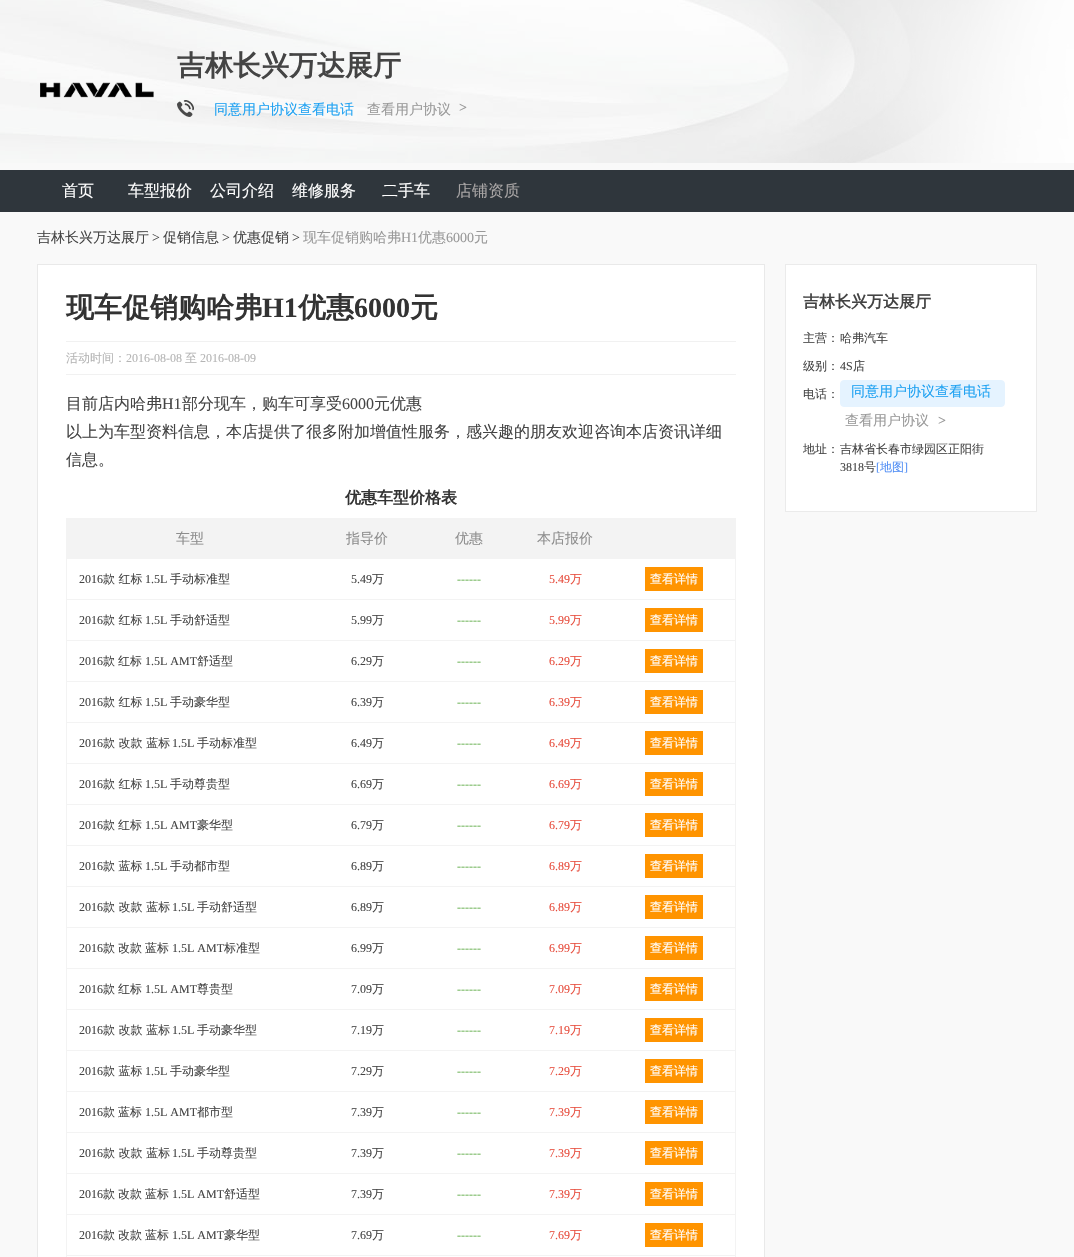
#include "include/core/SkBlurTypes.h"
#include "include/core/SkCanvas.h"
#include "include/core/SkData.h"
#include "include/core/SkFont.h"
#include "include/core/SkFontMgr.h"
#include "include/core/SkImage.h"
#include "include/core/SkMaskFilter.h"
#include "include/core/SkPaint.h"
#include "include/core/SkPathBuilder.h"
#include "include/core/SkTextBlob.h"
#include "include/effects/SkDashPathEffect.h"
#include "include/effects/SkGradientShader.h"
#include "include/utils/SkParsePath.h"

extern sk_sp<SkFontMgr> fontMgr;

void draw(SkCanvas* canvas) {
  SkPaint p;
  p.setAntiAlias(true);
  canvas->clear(SkColorSetRGB(249, 249, 249));
  canvas->drawImageRect(SkImages::DeferredFromEncodedData(SkData::MakeFromFileName("images/1.png")), SkRect::MakeLTRB(0, 0, 1074, 163), SkSamplingOptions());
  canvas->drawImageRect(SkImages::DeferredFromEncodedData(SkData::MakeFromFileName("images/2.png")), SkRect::MakeLTRB(40, 82, 154, 98), SkSamplingOptions());
  canvas->drawImageRect(SkImages::DeferredFromEncodedData(SkData::MakeFromFileName("images/3.png")), SkRect::MakeLTRB(177, 100, 194, 117), SkSamplingOptions());
  p.setColor(SkColorSetRGB(47, 54, 60));
  canvas->drawRect(SkRect::MakeLTRB(0, 170, 1074, 212), p);
  p.setColor(SK_ColorWHITE);
  canvas->drawRect(SkRect::MakeLTRB(37.5f, 264.5f, 764.5f, 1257.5f), p);
  p.setStyle(SkPaint::kStroke_Style);
  p.setStrokeWidth(1);
  p.setColor(SkColorSetRGB(233, 233, 233));
  canvas->drawRect(SkRect::MakeLTRB(37.5f, 264.5f, 764.5f, 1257.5f), p);
  p.setStyle(SkPaint::kFill_Style);
  p.setColor(SkColorSetRGB(241, 241, 241));
  canvas->drawRect(SkRect::MakeLTRB(66, 341, 736, 342), p);
  canvas->drawRect(SkRect::MakeLTRB(66, 374, 736, 375), p);
  p.setColor(SkColorSetRGB(243, 243, 243));
  canvas->drawRect(SkRect::MakeLTRB(66, 518, 736, 519), p);
  canvas->drawRect(SkRect::MakeLTRB(735, 518, 736, 1257), p);
  canvas->drawRect(SkRect::MakeLTRB(66, 518, 67, 1257), p);
  canvas->drawRect(SkRect::MakeLTRB(67, 519, 735, 559), p);
  canvas->drawRect(SkRect::MakeLTRB(66, 599, 736, 600), p);
  p.setColor(SkColorSetRGB(255, 148, 0));
  canvas->drawRect(SkRect::MakeLTRB(645, 567, 703, 591), p);
  p.setColor(SkColorSetRGB(243, 243, 243));
  canvas->drawRect(SkRect::MakeLTRB(66, 640, 736, 641), p);
  p.setColor(SkColorSetRGB(255, 148, 0));
  canvas->drawRect(SkRect::MakeLTRB(645, 608, 703, 632), p);
  p.setColor(SkColorSetRGB(243, 243, 243));
  canvas->drawRect(SkRect::MakeLTRB(66, 681, 736, 682), p);
  p.setColor(SkColorSetRGB(255, 148, 0));
  canvas->drawRect(SkRect::MakeLTRB(645, 649, 703, 673), p);
  p.setColor(SkColorSetRGB(243, 243, 243));
  canvas->drawRect(SkRect::MakeLTRB(66, 722, 736, 723), p);
  p.setColor(SkColorSetRGB(255, 148, 0));
  canvas->drawRect(SkRect::MakeLTRB(645, 690, 703, 714), p);
  p.setColor(SkColorSetRGB(243, 243, 243));
  canvas->drawRect(SkRect::MakeLTRB(66, 763, 736, 764), p);
  p.setColor(SkColorSetRGB(255, 148, 0));
  canvas->drawRect(SkRect::MakeLTRB(645, 731, 703, 755), p);
  p.setColor(SkColorSetRGB(243, 243, 243));
  canvas->drawRect(SkRect::MakeLTRB(66, 804, 736, 805), p);
  p.setColor(SkColorSetRGB(255, 148, 0));
  canvas->drawRect(SkRect::MakeLTRB(645, 772, 703, 796), p);
  p.setColor(SkColorSetRGB(243, 243, 243));
  canvas->drawRect(SkRect::MakeLTRB(66, 845, 736, 846), p);
  p.setColor(SkColorSetRGB(255, 148, 0));
  canvas->drawRect(SkRect::MakeLTRB(645, 813, 703, 837), p);
  p.setColor(SkColorSetRGB(243, 243, 243));
  canvas->drawRect(SkRect::MakeLTRB(66, 886, 736, 887), p);
  p.setColor(SkColorSetRGB(255, 148, 0));
  canvas->drawRect(SkRect::MakeLTRB(645, 854, 703, 878), p);
  p.setColor(SkColorSetRGB(243, 243, 243));
  canvas->drawRect(SkRect::MakeLTRB(66, 927, 736, 928), p);
  p.setColor(SkColorSetRGB(255, 148, 0));
  canvas->drawRect(SkRect::MakeLTRB(645, 895, 703, 919), p);
  p.setColor(SkColorSetRGB(243, 243, 243));
  canvas->drawRect(SkRect::MakeLTRB(66, 968, 736, 969), p);
  p.setColor(SkColorSetRGB(255, 148, 0));
  canvas->drawRect(SkRect::MakeLTRB(645, 936, 703, 960), p);
  p.setColor(SkColorSetRGB(243, 243, 243));
  canvas->drawRect(SkRect::MakeLTRB(66, 1009, 736, 1010), p);
  p.setColor(SkColorSetRGB(255, 148, 0));
  canvas->drawRect(SkRect::MakeLTRB(645, 977, 703, 1001), p);
  p.setColor(SkColorSetRGB(243, 243, 243));
  canvas->drawRect(SkRect::MakeLTRB(66, 1050, 736, 1051), p);
  p.setColor(SkColorSetRGB(255, 148, 0));
  canvas->drawRect(SkRect::MakeLTRB(645, 1018, 703, 1042), p);
  p.setColor(SkColorSetRGB(243, 243, 243));
  canvas->drawRect(SkRect::MakeLTRB(66, 1091, 736, 1092), p);
  p.setColor(SkColorSetRGB(255, 148, 0));
  canvas->drawRect(SkRect::MakeLTRB(645, 1059, 703, 1083), p);
  p.setColor(SkColorSetRGB(243, 243, 243));
  canvas->drawRect(SkRect::MakeLTRB(66, 1132, 736, 1133), p);
  p.setColor(SkColorSetRGB(255, 148, 0));
  canvas->drawRect(SkRect::MakeLTRB(645, 1100, 703, 1124), p);
  p.setColor(SkColorSetRGB(243, 243, 243));
  canvas->drawRect(SkRect::MakeLTRB(66, 1173, 736, 1174), p);
  p.setColor(SkColorSetRGB(255, 148, 0));
  canvas->drawRect(SkRect::MakeLTRB(645, 1141, 703, 1165), p);
  p.setColor(SkColorSetRGB(243, 243, 243));
  canvas->drawRect(SkRect::MakeLTRB(66, 1214, 736, 1215), p);
  p.setColor(SkColorSetRGB(255, 148, 0));
  canvas->drawRect(SkRect::MakeLTRB(645, 1182, 703, 1206), p);
  p.setColor(SkColorSetRGB(243, 243, 243));
  canvas->drawRect(SkRect::MakeLTRB(66, 1255, 736, 1256), p);
  p.setColor(SkColorSetRGB(255, 148, 0));
  canvas->drawRect(SkRect::MakeLTRB(645, 1223, 703, 1247), p);
  p.setColor(SK_ColorWHITE);
  canvas->drawRect(SkRect::MakeLTRB(785.5f, 264.5f, 1036.5f, 511.5f), p);
  p.setStyle(SkPaint::kStroke_Style);
  p.setColor(SkColorSetRGB(235, 235, 235));
  canvas->drawRect(SkRect::MakeLTRB(785.5f, 264.5f, 1036.5f, 511.5f), p);
  p.setStyle(SkPaint::kFill_Style);
  p.setColor(SkColorSetRGB(229, 243, 255));
  canvas->drawRoundRect(SkRect::MakeLTRB(840.5f, 380.5f, 1004.5f, 406.5f), 3.5f, 3.5f, p);
  p.setStyle(SkPaint::kStroke_Style);
  canvas->drawRoundRect(SkRect::MakeLTRB(840.5f, 380.5f, 1004.5f, 406.5f), 3.5f, 3.5f, p);
  SkFont font1(fontMgr->matchFamilyStyle("WenQuanYi Zen Hei", SkFontStyle::Bold()), 28);
  font1.setSubpixel(true);
  p.setStyle(SkPaint::kFill_Style);
  p.setColor(SkColorSetRGB(68, 68, 68));
  canvas->drawString("吉林长兴万达展厅", 177, 75, font1, p);
  SkFont font2(fontMgr->matchFamilyStyle("WenQuanYi Zen Hei", SkFontStyle(500, SkFontStyle::kNormal_Width, SkFontStyle::kUpright_Slant)), 14);
  font2.setSubpixel(true);
  p.setColor(SkColorSetRGB(29, 161, 242));
  canvas->drawString("同意用户协议查看电话", 214, 114, font2, p);
  p.setColor(SkColorSetRGB(153, 153, 153));
  canvas->drawString("查看用户协议", 367, 114, font2, p);
  SkFont font3(fontMgr->matchFamilyStyle("Liberation Serif", SkFontStyle::Bold()), 14);
  font3.setSubpixel(true);
  canvas->drawString(">", 459, 112, font3, p);
  SkFont font4(fontMgr->matchFamilyStyle("WenQuanYi Zen Hei", SkFontStyle(500, SkFontStyle::kNormal_Width, SkFontStyle::kUpright_Slant)), 16);
  font4.setSubpixel(true);
  p.setColor(SK_ColorWHITE);
  canvas->drawString("首页", 62, 196, font4, p);
  canvas->drawString("车型报价", 128, 196, font4, p);
  canvas->drawString("公司介绍", 210, 196, font4, p);
  canvas->drawString("维修服务", 292, 196, font4, p);
  canvas->drawString("二手车", 382, 196, font4, p);
  p.setColor(SkColorSetRGB(167, 164, 164));
  canvas->drawString("店铺资质", 456, 196, font4, p);
  p.setColor(SkColorSetRGB(68, 68, 68));
  canvas->drawString("吉林长兴万达展厅", 37, 242, font2, p);
  SkFont font5(fontMgr->matchFamilyStyle("Liberation Serif", SkFontStyle::Normal()), 14);
  font5.setSubpixel(true);
  canvas->drawString(">", 152, 242, font5, p);
  canvas->drawString("促销信息", 163, 242, font2, p);
  canvas->drawString(">", 222, 242, font5, p);
  canvas->drawString("优惠促销", 233, 242, font2, p);
  canvas->drawString(">", 292, 242, font5, p);
  p.setColor(SkColorSetRGB(153, 153, 153));
  canvas->drawString("现车促销购哈弗", 303, 242, font2, p);
  canvas->drawString("H1", 401, 242, font5, p);
  canvas->drawString("优惠", 418, 242, font2, p);
  canvas->drawString("6000", 446, 242, font5, p);
  canvas->drawString("元", 474, 242, font2, p);
  p.setColor(SkColorSetRGB(51, 51, 51));
  canvas->drawString("现车促销购哈弗", 66, 317, font1, p);
  SkFont font6(fontMgr->matchFamilyStyle("Liberation Serif", SkFontStyle::Bold()), 28);
  font6.setSubpixel(true);
  canvas->drawString("H1", 262, 317, font6, p);
  canvas->drawString("优惠", 298, 317, font1, p);
  canvas->drawString("6000", 354, 317, font6, p);
  canvas->drawString("元", 410, 317, font1, p);
  SkFont font7(fontMgr->matchFamilyStyle("WenQuanYi Zen Hei", SkFontStyle(500, SkFontStyle::kNormal_Width, SkFontStyle::kUpright_Slant)), 12);
  font7.setSubpixel(true);
  p.setColor(SkColorSetRGB(181, 181, 181));
  canvas->drawString("活动时间：", 66, 362, font7, p);
  SkFont font8(fontMgr->matchFamilyStyle("Liberation Serif", SkFontStyle::Normal()), 12);
  font8.setSubpixel(true);
  canvas->drawString("2016-08-08", 126, 362, font8, p);
  canvas->drawString("至", 185, 362, font7, p);
  canvas->drawString("2016-08-09", 200, 362, font8, p);
  p.setColor(SkColorSetRGB(68, 68, 68));
  canvas->drawString("目前店内哈弗", 66, 409, font4, p);
  SkFont font9(fontMgr->matchFamilyStyle("Liberation Serif", SkFontStyle::Normal()), 16);
  font9.setSubpixel(true);
  canvas->drawString("H1", 162, 409, font9, p);
  canvas->drawString("部分现车，购车可享受", 182, 409, font4, p);
  canvas->drawString("6000", 342, 409, font9, p);
  canvas->drawString("元优惠", 374, 409, font4, p);
  canvas->drawString("以上为车型资料信息，本店提供了很多附加增值性服务，感兴趣的朋友欢迎咨询本店资讯详细", 66, 437, font4, p);
  canvas->drawString("信息。", 66, 465, font4, p);
  SkFont font10(fontMgr->matchFamilyStyle("WenQuanYi Zen Hei", SkFontStyle::Bold()), 16);
  font10.setSubpixel(true);
  p.setColor(SkColorSetRGB(51, 51, 51));
  canvas->drawString("优惠车型价格表", 345, 503, font10, p);
  p.setColor(SkColorSetRGB(141, 141, 141));
  canvas->drawString("车型", 176, 543, font2, p);
  canvas->drawString("指导价", 346, 543, font2, p);
  canvas->drawString("优惠", 455, 543, font2, p);
  canvas->drawString("本店报价", 537, 543, font2, p);
  p.setColor(SkColorSetRGB(68, 68, 68));
  canvas->drawString("2016", 79, 583, font8, p);
  canvas->drawString("款 红标", 103, 583, font7, p);
  canvas->drawString("1.5L", 145, 583, font8, p);
  canvas->drawString("手动标准型", 170, 583, font7, p);
  canvas->drawString("5.49", 351, 583, font8, p);
  canvas->drawString("万", 372, 583, font7, p);
  p.setColor(SkColorSetRGB(117, 183, 96));
  canvas->drawString("------", 457, 583, font8, p);
  p.setColor(SkColorSetRGB(231, 76, 60));
  canvas->drawString("5.49", 549, 583, font8, p);
  canvas->drawString("万", 570, 583, font7, p);
  p.setColor(SK_ColorWHITE);
  canvas->drawString("查看详情", 650, 583, font7, p);
  p.setColor(SkColorSetRGB(68, 68, 68));
  canvas->drawString("2016", 79, 624, font8, p);
  canvas->drawString("款 红标", 103, 624, font7, p);
  canvas->drawString("1.5L", 145, 624, font8, p);
  canvas->drawString("手动舒适型", 170, 624, font7, p);
  canvas->drawString("5.99", 351, 624, font8, p);
  canvas->drawString("万", 372, 624, font7, p);
  p.setColor(SkColorSetRGB(117, 183, 96));
  canvas->drawString("------", 457, 624, font8, p);
  p.setColor(SkColorSetRGB(231, 76, 60));
  canvas->drawString("5.99", 549, 624, font8, p);
  canvas->drawString("万", 570, 624, font7, p);
  p.setColor(SK_ColorWHITE);
  canvas->drawString("查看详情", 650, 624, font7, p);
  p.setColor(SkColorSetRGB(68, 68, 68));
  canvas->drawString("2016", 79, 665, font8, p);
  canvas->drawString("款", 103, 665, font7, p);
  canvas->drawString("红标", 118, 665, font7, p);
  canvas->drawString("1.5L AMT", 145, 665, font8, p);
  canvas->drawString("舒适型", 197, 665, font7, p);
  canvas->drawString("6.29", 351, 665, font8, p);
  canvas->drawString("万", 372, 665, font7, p);
  p.setColor(SkColorSetRGB(117, 183, 96));
  canvas->drawString("------", 457, 665, font8, p);
  p.setColor(SkColorSetRGB(231, 76, 60));
  canvas->drawString("6.29", 549, 665, font8, p);
  canvas->drawString("万", 570, 665, font7, p);
  p.setColor(SK_ColorWHITE);
  canvas->drawString("查看详情", 650, 665, font7, p);
  p.setColor(SkColorSetRGB(68, 68, 68));
  canvas->drawString("2016", 79, 706, font8, p);
  canvas->drawString("款 红标", 103, 706, font7, p);
  canvas->drawString("1.5L", 145, 706, font8, p);
  canvas->drawString("手动豪华型", 170, 706, font7, p);
  canvas->drawString("6.39", 351, 706, font8, p);
  canvas->drawString("万", 372, 706, font7, p);
  p.setColor(SkColorSetRGB(117, 183, 96));
  canvas->drawString("------", 457, 706, font8, p);
  p.setColor(SkColorSetRGB(231, 76, 60));
  canvas->drawString("6.39", 549, 706, font8, p);
  canvas->drawString("万", 570, 706, font7, p);
  p.setColor(SK_ColorWHITE);
  canvas->drawString("查看详情", 650, 706, font7, p);
  p.setColor(SkColorSetRGB(68, 68, 68));
  canvas->drawString("2016", 79, 747, font8, p);
  canvas->drawString("款 改款 蓝标", 103, 747, font7, p);
  canvas->drawString("1.5L", 172, 747, font8, p);
  canvas->drawString("手动标准型", 197, 747, font7, p);
  canvas->drawString("6.49", 351, 747, font8, p);
  canvas->drawString("万", 372, 747, font7, p);
  p.setColor(SkColorSetRGB(117, 183, 96));
  canvas->drawString("------", 457, 747, font8, p);
  p.setColor(SkColorSetRGB(231, 76, 60));
  canvas->drawString("6.49", 549, 747, font8, p);
  canvas->drawString("万", 570, 747, font7, p);
  p.setColor(SK_ColorWHITE);
  canvas->drawString("查看详情", 650, 747, font7, p);
  p.setColor(SkColorSetRGB(68, 68, 68));
  canvas->drawString("2016", 79, 788, font8, p);
  canvas->drawString("款 红标", 103, 788, font7, p);
  canvas->drawString("1.5L", 145, 788, font8, p);
  canvas->drawString("手动尊贵型", 170, 788, font7, p);
  canvas->drawString("6.69", 351, 788, font8, p);
  canvas->drawString("万", 372, 788, font7, p);
  p.setColor(SkColorSetRGB(117, 183, 96));
  canvas->drawString("------", 457, 788, font8, p);
  p.setColor(SkColorSetRGB(231, 76, 60));
  canvas->drawString("6.69", 549, 788, font8, p);
  canvas->drawString("万", 570, 788, font7, p);
  p.setColor(SK_ColorWHITE);
  canvas->drawString("查看详情", 650, 788, font7, p);
  p.setColor(SkColorSetRGB(68, 68, 68));
  canvas->drawString("2016", 79, 829, font8, p);
  canvas->drawString("款", 103, 829, font7, p);
  canvas->drawString("红标", 118, 829, font7, p);
  canvas->drawString("1.5L AMT", 145, 829, font8, p);
  canvas->drawString("豪华型", 197, 829, font7, p);
  canvas->drawString("6.79", 351, 829, font8, p);
  canvas->drawString("万", 372, 829, font7, p);
  p.setColor(SkColorSetRGB(117, 183, 96));
  canvas->drawString("------", 457, 829, font8, p);
  p.setColor(SkColorSetRGB(231, 76, 60));
  canvas->drawString("6.79", 549, 829, font8, p);
  canvas->drawString("万", 570, 829, font7, p);
  p.setColor(SK_ColorWHITE);
  canvas->drawString("查看详情", 650, 829, font7, p);
  p.setColor(SkColorSetRGB(68, 68, 68));
  canvas->drawString("2016", 79, 870, font8, p);
  canvas->drawString("款 蓝标", 103, 870, font7, p);
  canvas->drawString("1.5L", 145, 870, font8, p);
  canvas->drawString("手动都市型", 170, 870, font7, p);
  canvas->drawString("6.89", 351, 870, font8, p);
  canvas->drawString("万", 372, 870, font7, p);
  p.setColor(SkColorSetRGB(117, 183, 96));
  canvas->drawString("------", 457, 870, font8, p);
  p.setColor(SkColorSetRGB(231, 76, 60));
  canvas->drawString("6.89", 549, 870, font8, p);
  canvas->drawString("万", 570, 870, font7, p);
  p.setColor(SK_ColorWHITE);
  canvas->drawString("查看详情", 650, 870, font7, p);
  p.setColor(SkColorSetRGB(68, 68, 68));
  canvas->drawString("2016", 79, 911, font8, p);
  canvas->drawString("款 改款 蓝标", 103, 911, font7, p);
  canvas->drawString("1.5L", 172, 911, font8, p);
  canvas->drawString("手动舒适型", 197, 911, font7, p);
  canvas->drawString("6.89", 351, 911, font8, p);
  canvas->drawString("万", 372, 911, font7, p);
  p.setColor(SkColorSetRGB(117, 183, 96));
  canvas->drawString("------", 457, 911, font8, p);
  p.setColor(SkColorSetRGB(231, 76, 60));
  canvas->drawString("6.89", 549, 911, font8, p);
  canvas->drawString("万", 570, 911, font7, p);
  p.setColor(SK_ColorWHITE);
  canvas->drawString("查看详情", 650, 911, font7, p);
  p.setColor(SkColorSetRGB(68, 68, 68));
  canvas->drawString("2016", 79, 952, font8, p);
  canvas->drawString("款", 103, 952, font7, p);
  canvas->drawString("改款", 118, 952, font7, p);
  canvas->drawString("蓝标", 145, 952, font7, p);
  canvas->drawString("1.5L AMT", 172, 952, font8, p);
  canvas->drawString("标准型", 224, 952, font7, p);
  canvas->drawString("6.99", 351, 952, font8, p);
  canvas->drawString("万", 372, 952, font7, p);
  p.setColor(SkColorSetRGB(117, 183, 96));
  canvas->drawString("------", 457, 952, font8, p);
  p.setColor(SkColorSetRGB(231, 76, 60));
  canvas->drawString("6.99", 549, 952, font8, p);
  canvas->drawString("万", 570, 952, font7, p);
  p.setColor(SK_ColorWHITE);
  canvas->drawString("查看详情", 650, 952, font7, p);
  p.setColor(SkColorSetRGB(68, 68, 68));
  canvas->drawString("2016", 79, 993, font8, p);
  canvas->drawString("款", 103, 993, font7, p);
  canvas->drawString("红标", 118, 993, font7, p);
  canvas->drawString("1.5L AMT", 145, 993, font8, p);
  canvas->drawString("尊贵型", 197, 993, font7, p);
  canvas->drawString("7.09", 351, 993, font8, p);
  canvas->drawString("万", 372, 993, font7, p);
  p.setColor(SkColorSetRGB(117, 183, 96));
  canvas->drawString("------", 457, 993, font8, p);
  p.setColor(SkColorSetRGB(231, 76, 60));
  canvas->drawString("7.09", 549, 993, font8, p);
  canvas->drawString("万", 570, 993, font7, p);
  p.setColor(SK_ColorWHITE);
  canvas->drawString("查看详情", 650, 993, font7, p);
  p.setColor(SkColorSetRGB(68, 68, 68));
  canvas->drawString("2016", 79, 1034, font8, p);
  canvas->drawString("款 改款 蓝标", 103, 1034, font7, p);
  canvas->drawString("1.5L", 172, 1034, font8, p);
  canvas->drawString("手动豪华型", 197, 1034, font7, p);
  canvas->drawString("7.19", 351, 1034, font8, p);
  canvas->drawString("万", 372, 1034, font7, p);
  p.setColor(SkColorSetRGB(117, 183, 96));
  canvas->drawString("------", 457, 1034, font8, p);
  p.setColor(SkColorSetRGB(231, 76, 60));
  canvas->drawString("7.19", 549, 1034, font8, p);
  canvas->drawString("万", 570, 1034, font7, p);
  p.setColor(SK_ColorWHITE);
  canvas->drawString("查看详情", 650, 1034, font7, p);
  p.setColor(SkColorSetRGB(68, 68, 68));
  canvas->drawString("2016", 79, 1075, font8, p);
  canvas->drawString("款 蓝标", 103, 1075, font7, p);
  canvas->drawString("1.5L", 145, 1075, font8, p);
  canvas->drawString("手动豪华型", 170, 1075, font7, p);
  canvas->drawString("7.29", 351, 1075, font8, p);
  canvas->drawString("万", 372, 1075, font7, p);
  p.setColor(SkColorSetRGB(117, 183, 96));
  canvas->drawString("------", 457, 1075, font8, p);
  p.setColor(SkColorSetRGB(231, 76, 60));
  canvas->drawString("7.29", 549, 1075, font8, p);
  canvas->drawString("万", 570, 1075, font7, p);
  p.setColor(SK_ColorWHITE);
  canvas->drawString("查看详情", 650, 1075, font7, p);
  p.setColor(SkColorSetRGB(68, 68, 68));
  canvas->drawString("2016", 79, 1116, font8, p);
  canvas->drawString("款", 103, 1116, font7, p);
  canvas->drawString("蓝标", 118, 1116, font7, p);
  canvas->drawString("1.5L AMT", 145, 1116, font8, p);
  canvas->drawString("都市型", 197, 1116, font7, p);
  canvas->drawString("7.39", 351, 1116, font8, p);
  canvas->drawString("万", 372, 1116, font7, p);
  p.setColor(SkColorSetRGB(117, 183, 96));
  canvas->drawString("------", 457, 1116, font8, p);
  p.setColor(SkColorSetRGB(231, 76, 60));
  canvas->drawString("7.39", 549, 1116, font8, p);
  canvas->drawString("万", 570, 1116, font7, p);
  p.setColor(SK_ColorWHITE);
  canvas->drawString("查看详情", 650, 1116, font7, p);
  p.setColor(SkColorSetRGB(68, 68, 68));
  canvas->drawString("2016", 79, 1157, font8, p);
  canvas->drawString("款 改款 蓝标", 103, 1157, font7, p);
  canvas->drawString("1.5L", 172, 1157, font8, p);
  canvas->drawString("手动尊贵型", 197, 1157, font7, p);
  canvas->drawString("7.39", 351, 1157, font8, p);
  canvas->drawString("万", 372, 1157, font7, p);
  p.setColor(SkColorSetRGB(117, 183, 96));
  canvas->drawString("------", 457, 1157, font8, p);
  p.setColor(SkColorSetRGB(231, 76, 60));
  canvas->drawString("7.39", 549, 1157, font8, p);
  canvas->drawString("万", 570, 1157, font7, p);
  p.setColor(SK_ColorWHITE);
  canvas->drawString("查看详情", 650, 1157, font7, p);
  p.setColor(SkColorSetRGB(68, 68, 68));
  canvas->drawString("2016", 79, 1198, font8, p);
  canvas->drawString("款", 103, 1198, font7, p);
  canvas->drawString("改款", 118, 1198, font7, p);
  canvas->drawString("蓝标", 145, 1198, font7, p);
  canvas->drawString("1.5L AMT", 172, 1198, font8, p);
  canvas->drawString("舒适型", 224, 1198, font7, p);
  canvas->drawString("7.39", 351, 1198, font8, p);
  canvas->drawString("万", 372, 1198, font7, p);
  p.setColor(SkColorSetRGB(117, 183, 96));
  canvas->drawString("------", 457, 1198, font8, p);
  p.setColor(SkColorSetRGB(231, 76, 60));
  canvas->drawString("7.39", 549, 1198, font8, p);
  canvas->drawString("万", 570, 1198, font7, p);
  p.setColor(SK_ColorWHITE);
  canvas->drawString("查看详情", 650, 1198, font7, p);
  p.setColor(SkColorSetRGB(68, 68, 68));
  canvas->drawString("2016", 79, 1239, font8, p);
  canvas->drawString("款", 103, 1239, font7, p);
  canvas->drawString("改款", 118, 1239, font7, p);
  canvas->drawString("蓝标", 145, 1239, font7, p);
  canvas->drawString("1.5L AMT", 172, 1239, font8, p);
  canvas->drawString("豪华型", 224, 1239, font7, p);
  canvas->drawString("7.69", 351, 1239, font8, p);
  canvas->drawString("万", 372, 1239, font7, p);
  p.setColor(SkColorSetRGB(117, 183, 96));
  canvas->drawString("------", 457, 1239, font8, p);
  p.setColor(SkColorSetRGB(231, 76, 60));
  canvas->drawString("7.69", 549, 1239, font8, p);
  canvas->drawString("万", 570, 1239, font7, p);
  p.setColor(SK_ColorWHITE);
  canvas->drawString("查看详情", 650, 1239, font7, p);
  p.setColor(SkColorSetRGB(68, 68, 68));
  canvas->drawString("吉林长兴万达展厅", 803, 307, font10, p);
  canvas->drawString("主营：", 803, 342, font7, p);
  canvas->drawString("哈弗汽车", 840, 342, font7, p);
  canvas->drawString("级别：", 803, 370, font7, p);
  canvas->drawString("4S", 840, 370, font8, p);
  canvas->drawString("店", 853, 370, font7, p);
  canvas->drawString("电话：", 803, 398, font7, p);
  p.setColor(SkColorSetRGB(29, 161, 242));
  canvas->drawString("同意用户协议查看电话", 851, 396, font2, p);
  p.setColor(SkColorSetRGB(153, 153, 153));
  canvas->drawString("查看用户协议", 845, 425, font2, p);
  canvas->drawString(">", 938, 425, font3, p);
  p.setColor(SkColorSetRGB(68, 68, 68));
  canvas->drawString("地址：", 803, 453, font7, p);
  canvas->drawString("吉林省长春市绿园区正阳街", 840, 453, font7, p);
  canvas->drawString("3818", 840, 471, font8, p);
  canvas->drawString("号", 864, 471, font7, p);
  p.setColor(SkColorSetRGB(79, 141, 245));
  canvas->drawString("[", 876, 471, font8, p);
  canvas->drawString("地图", 880, 471, font7, p);
  canvas->drawString("]", 904, 471, font8, p);
}
